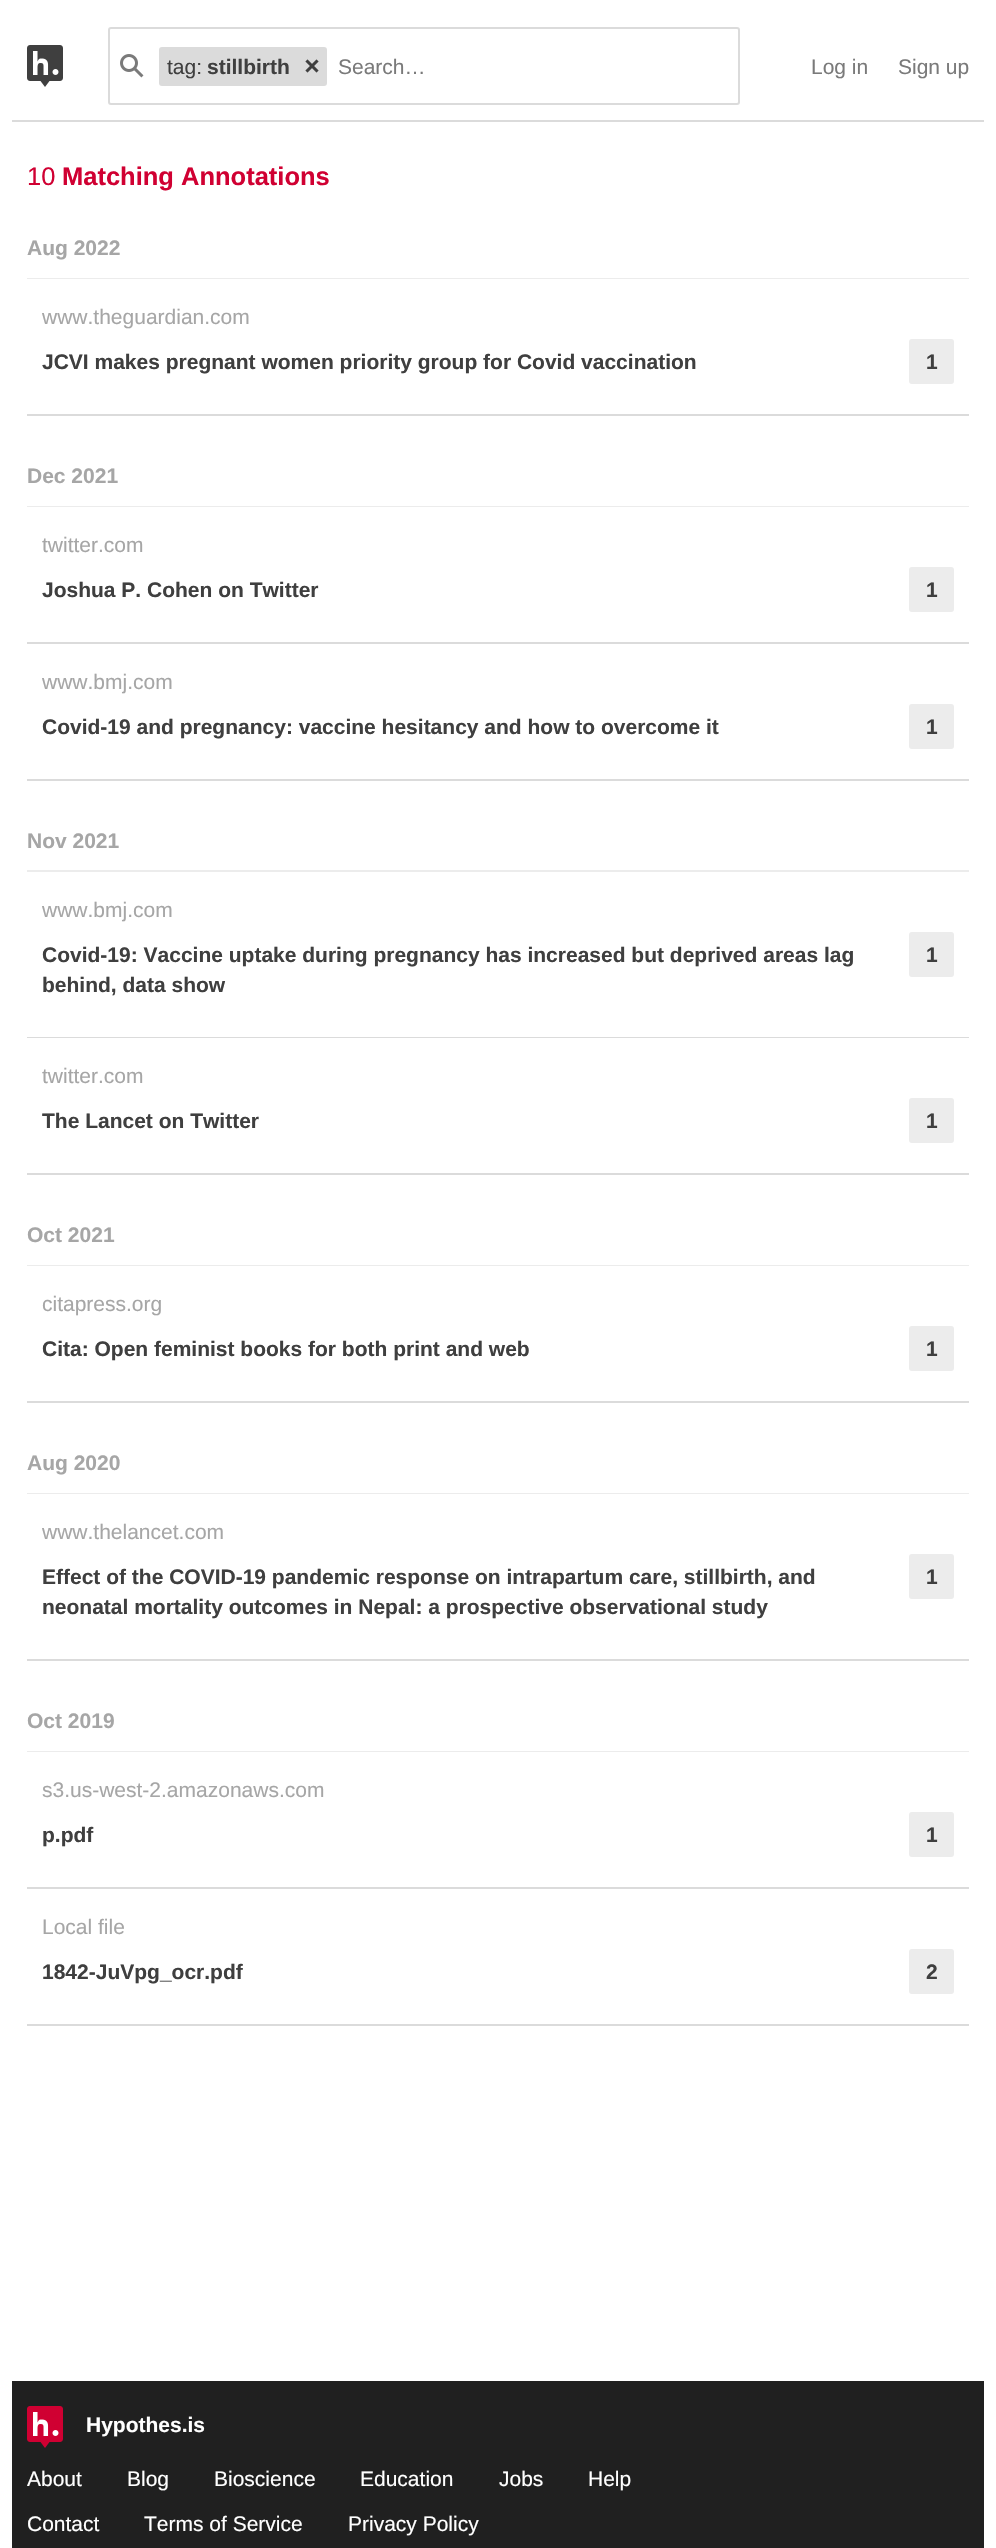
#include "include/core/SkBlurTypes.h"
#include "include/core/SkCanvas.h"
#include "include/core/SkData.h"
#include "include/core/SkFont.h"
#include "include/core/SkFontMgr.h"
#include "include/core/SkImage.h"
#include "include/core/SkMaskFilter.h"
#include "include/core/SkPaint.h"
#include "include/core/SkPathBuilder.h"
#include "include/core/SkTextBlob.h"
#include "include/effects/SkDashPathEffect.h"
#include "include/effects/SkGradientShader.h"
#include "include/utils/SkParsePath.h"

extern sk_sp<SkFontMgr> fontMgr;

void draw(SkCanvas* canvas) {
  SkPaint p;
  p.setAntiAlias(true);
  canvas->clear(SK_ColorWHITE);
  p.setColor(SkColorSetRGB(219, 219, 219));
  canvas->drawRect(SkRect::MakeLTRB(12, 120, 984, 122), p);
  canvas->drawImageRect(SkImages::DeferredFromEncodedData(SkData::MakeFromFileName("images/1.png")), SkRect::MakeLTRB(27, 45, 63, 87), SkSamplingOptions());
  p.setStyle(SkPaint::kStroke_Style);
  p.setStrokeWidth(2);
  canvas->drawRoundRect(SkRect::MakeLTRB(109, 28, 739, 104), 2, 2, p);
  canvas->drawImageRect(SkImages::DeferredFromEncodedData(SkData::MakeFromFileName("images/2.png")), SkRect::MakeLTRB(120, 54, 144, 78), SkSamplingOptions());
  p.setStyle(SkPaint::kFill_Style);
  canvas->drawRoundRect(SkRect::MakeLTRB(159, 47, 327, 86), 3, 3, p);
  canvas->drawImageRect(SkImages::DeferredFromEncodedData(SkData::MakeFromFileName("images/3.png")), SkRect::MakeLTRB(305, 59, 319, 73), SkSamplingOptions());
  p.setColor(SkColorSetRGB(236, 236, 236));
  canvas->drawRect(SkRect::MakeLTRB(27, 278, 969, 279), p);
  p.setColor(SkColorSetRGB(219, 219, 219));
  canvas->drawRect(SkRect::MakeLTRB(27, 414, 969, 416), p);
  p.setColor(SkColorSetRGB(236, 236, 236));
  canvas->drawRoundRect(SkRect::MakeLTRB(909, 339, 954, 384), 3, 3, p);
  canvas->drawRect(SkRect::MakeLTRB(27, 506, 969, 507), p);
  p.setColor(SkColorSetRGB(219, 219, 219));
  canvas->drawRect(SkRect::MakeLTRB(27, 642, 969, 644), p);
  p.setColor(SkColorSetRGB(236, 236, 236));
  canvas->drawRoundRect(SkRect::MakeLTRB(909, 567, 954, 612), 3, 3, p);
  p.setColor(SkColorSetRGB(219, 219, 219));
  canvas->drawRect(SkRect::MakeLTRB(27, 779, 969, 781), p);
  p.setColor(SkColorSetRGB(236, 236, 236));
  canvas->drawRoundRect(SkRect::MakeLTRB(909, 704, 954, 749), 3, 3, p);
  canvas->drawRect(SkRect::MakeLTRB(27, 870, 969, 872), p);
  p.setColor(SkColorSetRGB(219, 219, 219));
  canvas->drawRect(SkRect::MakeLTRB(27, 1037, 969, 1038), p);
  p.setColor(SkColorSetRGB(236, 236, 236));
  canvas->drawRoundRect(SkRect::MakeLTRB(909, 932, 954, 977), 3, 3, p);
  p.setColor(SkColorSetRGB(219, 219, 219));
  canvas->drawRect(SkRect::MakeLTRB(27, 1173, 969, 1175), p);
  p.setColor(SkColorSetRGB(236, 236, 236));
  canvas->drawRoundRect(SkRect::MakeLTRB(909, 1098, 954, 1143), 3, 3, p);
  canvas->drawRect(SkRect::MakeLTRB(27, 1265, 969, 1266), p);
  p.setColor(SkColorSetRGB(219, 219, 219));
  canvas->drawRect(SkRect::MakeLTRB(27, 1401, 969, 1403), p);
  p.setColor(SkColorSetRGB(236, 236, 236));
  canvas->drawRoundRect(SkRect::MakeLTRB(909, 1326, 954, 1371), 3, 3, p);
  canvas->drawRect(SkRect::MakeLTRB(27, 1493, 969, 1494), p);
  p.setColor(SkColorSetRGB(219, 219, 219));
  canvas->drawRect(SkRect::MakeLTRB(27, 1659, 969, 1661), p);
  p.setColor(SkColorSetRGB(236, 236, 236));
  canvas->drawRoundRect(SkRect::MakeLTRB(909, 1554, 954, 1599), 3, 3, p);
  canvas->drawRect(SkRect::MakeLTRB(27, 1751, 969, 1752), p);
  p.setColor(SkColorSetRGB(219, 219, 219));
  canvas->drawRect(SkRect::MakeLTRB(27, 1887, 969, 1889), p);
  p.setColor(SkColorSetRGB(236, 236, 236));
  canvas->drawRoundRect(SkRect::MakeLTRB(909, 1812, 954, 1857), 3, 3, p);
  p.setColor(SkColorSetRGB(219, 219, 219));
  canvas->drawRect(SkRect::MakeLTRB(27, 2024, 969, 2026), p);
  p.setColor(SkColorSetRGB(236, 236, 236));
  canvas->drawRoundRect(SkRect::MakeLTRB(909, 1949, 954, 1994), 3, 3, p);
  p.setColor(SkColorSetRGB(32, 32, 32));
  canvas->drawRect(SkRect::MakeLTRB(12, 2381, 984, 2548), p);
  canvas->drawImageRect(SkImages::DeferredFromEncodedData(SkData::MakeFromFileName("images/4.png")), SkRect::MakeLTRB(27, 2406, 63, 2448), SkSamplingOptions());
  SkFont font1(fontMgr->matchFamilyStyle("Liberation Sans", SkFontStyle::Normal()), 21);
  font1.setSubpixel(true);
  p.setColor(SkColorSetRGB(63, 63, 63));
  canvas->drawString("tag:", 167, 74, font1, p);
  SkFont font2(fontMgr->matchFamilyStyle("Liberation Sans", SkFontStyle::Bold()), 21);
  font2.setSubpixel(true);
  canvas->drawString("stillbirth", 207, 74, font2, p);
  p.setColor(SkColorSetRGB(122, 122, 122));
  canvas->drawString("Search…", 338, 74, font1, p);
  canvas->drawString("Log in", 811, 74, font1, p);
  canvas->drawString("Sign up", 898, 74, font1, p);
  SkFont font3(fontMgr->matchFamilyStyle("Liberation Sans", SkFontStyle::Normal()), 25.5f);
  font3.setSubpixel(true);
  p.setColor(SkColorSetRGB(208, 0, 50));
  canvas->drawString("10", 27, 185, font3, p);
  SkFont font4(fontMgr->matchFamilyStyle("Liberation Sans", SkFontStyle::Bold()), 25.5f);
  font4.setSubpixel(true);
  canvas->drawString("Matching Annotations", 62, 185, font4, p);
  p.setColor(SkColorSetRGB(166, 166, 166));
  canvas->drawString("Aug 2022", 27, 255, font2, p);
  canvas->drawString("www.theguardian.com", 42, 324, font1, p);
  p.setColor(SkColorSetRGB(63, 63, 63));
  canvas->drawString("JCVI makes pregnant women priority group for Covid vaccination", 42, 369, font2, p);
  canvas->drawString("1", 926, 369, font2, p);
  p.setColor(SkColorSetRGB(166, 166, 166));
  canvas->drawString("Dec 2021", 27, 483, font2, p);
  canvas->drawString("twitter.com", 42, 552, font1, p);
  p.setColor(SkColorSetRGB(63, 63, 63));
  canvas->drawString("Joshua P. Cohen on Twitter", 42, 597, font2, p);
  canvas->drawString("1", 926, 597, font2, p);
  p.setColor(SkColorSetRGB(166, 166, 166));
  canvas->drawString("www.bmj.com", 42, 689, font1, p);
  p.setColor(SkColorSetRGB(63, 63, 63));
  canvas->drawString("Covid-19 and pregnancy: vaccine hesitancy and how to overcome it", 42, 734, font2, p);
  canvas->drawString("1", 926, 734, font2, p);
  p.setColor(SkColorSetRGB(166, 166, 166));
  canvas->drawString("Nov 2021", 27, 848, font2, p);
  canvas->drawString("www.bmj.com", 42, 917, font1, p);
  p.setColor(SkColorSetRGB(63, 63, 63));
  canvas->drawString("Covid-19: Vaccine uptake during pregnancy has increased but deprived areas lag", 42, 962, font2, p);
  canvas->drawString("behind, data show", 42, 992, font2, p);
  canvas->drawString("1", 926, 962, font2, p);
  p.setColor(SkColorSetRGB(166, 166, 166));
  canvas->drawString("twitter.com", 42, 1083, font1, p);
  p.setColor(SkColorSetRGB(63, 63, 63));
  canvas->drawString("The Lancet on Twitter", 42, 1128, font2, p);
  canvas->drawString("1", 926, 1128, font2, p);
  p.setColor(SkColorSetRGB(166, 166, 166));
  canvas->drawString("Oct 2021", 27, 1242, font2, p);
  canvas->drawString("citapress.org", 42, 1311, font1, p);
  p.setColor(SkColorSetRGB(63, 63, 63));
  canvas->drawString("Cita: Open feminist books for both print and web", 42, 1356, font2, p);
  canvas->drawString("1", 926, 1356, font2, p);
  p.setColor(SkColorSetRGB(166, 166, 166));
  canvas->drawString("Aug 2020", 27, 1470, font2, p);
  canvas->drawString("www.thelancet.com", 42, 1539, font1, p);
  p.setColor(SkColorSetRGB(63, 63, 63));
  canvas->drawString("Effect of the COVID-19 pandemic response on intrapartum care, stillbirth, and", 42, 1584, font2, p);
  canvas->drawString("neonatal mortality outcomes in Nepal: a prospective observational study", 42, 1614, font2, p);
  canvas->drawString("1", 926, 1584, font2, p);
  p.setColor(SkColorSetRGB(166, 166, 166));
  canvas->drawString("Oct 2019", 27, 1728, font2, p);
  canvas->drawString("s3.us-west-2.amazonaws.com", 42, 1797, font1, p);
  p.setColor(SkColorSetRGB(63, 63, 63));
  canvas->drawString("p.pdf", 42, 1842, font2, p);
  canvas->drawString("1", 926, 1842, font2, p);
  p.setColor(SkColorSetRGB(166, 166, 166));
  canvas->drawString("Local file", 42, 1934, font1, p);
  p.setColor(SkColorSetRGB(63, 63, 63));
  canvas->drawString("1842-JuVpg_ocr.pdf", 42, 1979, font2, p);
  canvas->drawString("2", 926, 1979, font2, p);
  p.setColor(SK_ColorWHITE);
  canvas->drawString("Hypothes.is", 86, 2432, font2, p);
  canvas->drawString("About", 27, 2486, font1, p);
  canvas->drawString("Blog", 127, 2486, font1, p);
  canvas->drawString("Bioscience", 214, 2486, font1, p);
  canvas->drawString("Education", 360, 2486, font1, p);
  canvas->drawString("Jobs", 499, 2486, font1, p);
  canvas->drawString("Help", 588, 2486, font1, p);
  canvas->drawString("Contact", 27, 2531, font1, p);
  canvas->drawString("Terms of Service", 144, 2531, font1, p);
  canvas->drawString("Privacy Policy", 348, 2531, font1, p);
}
